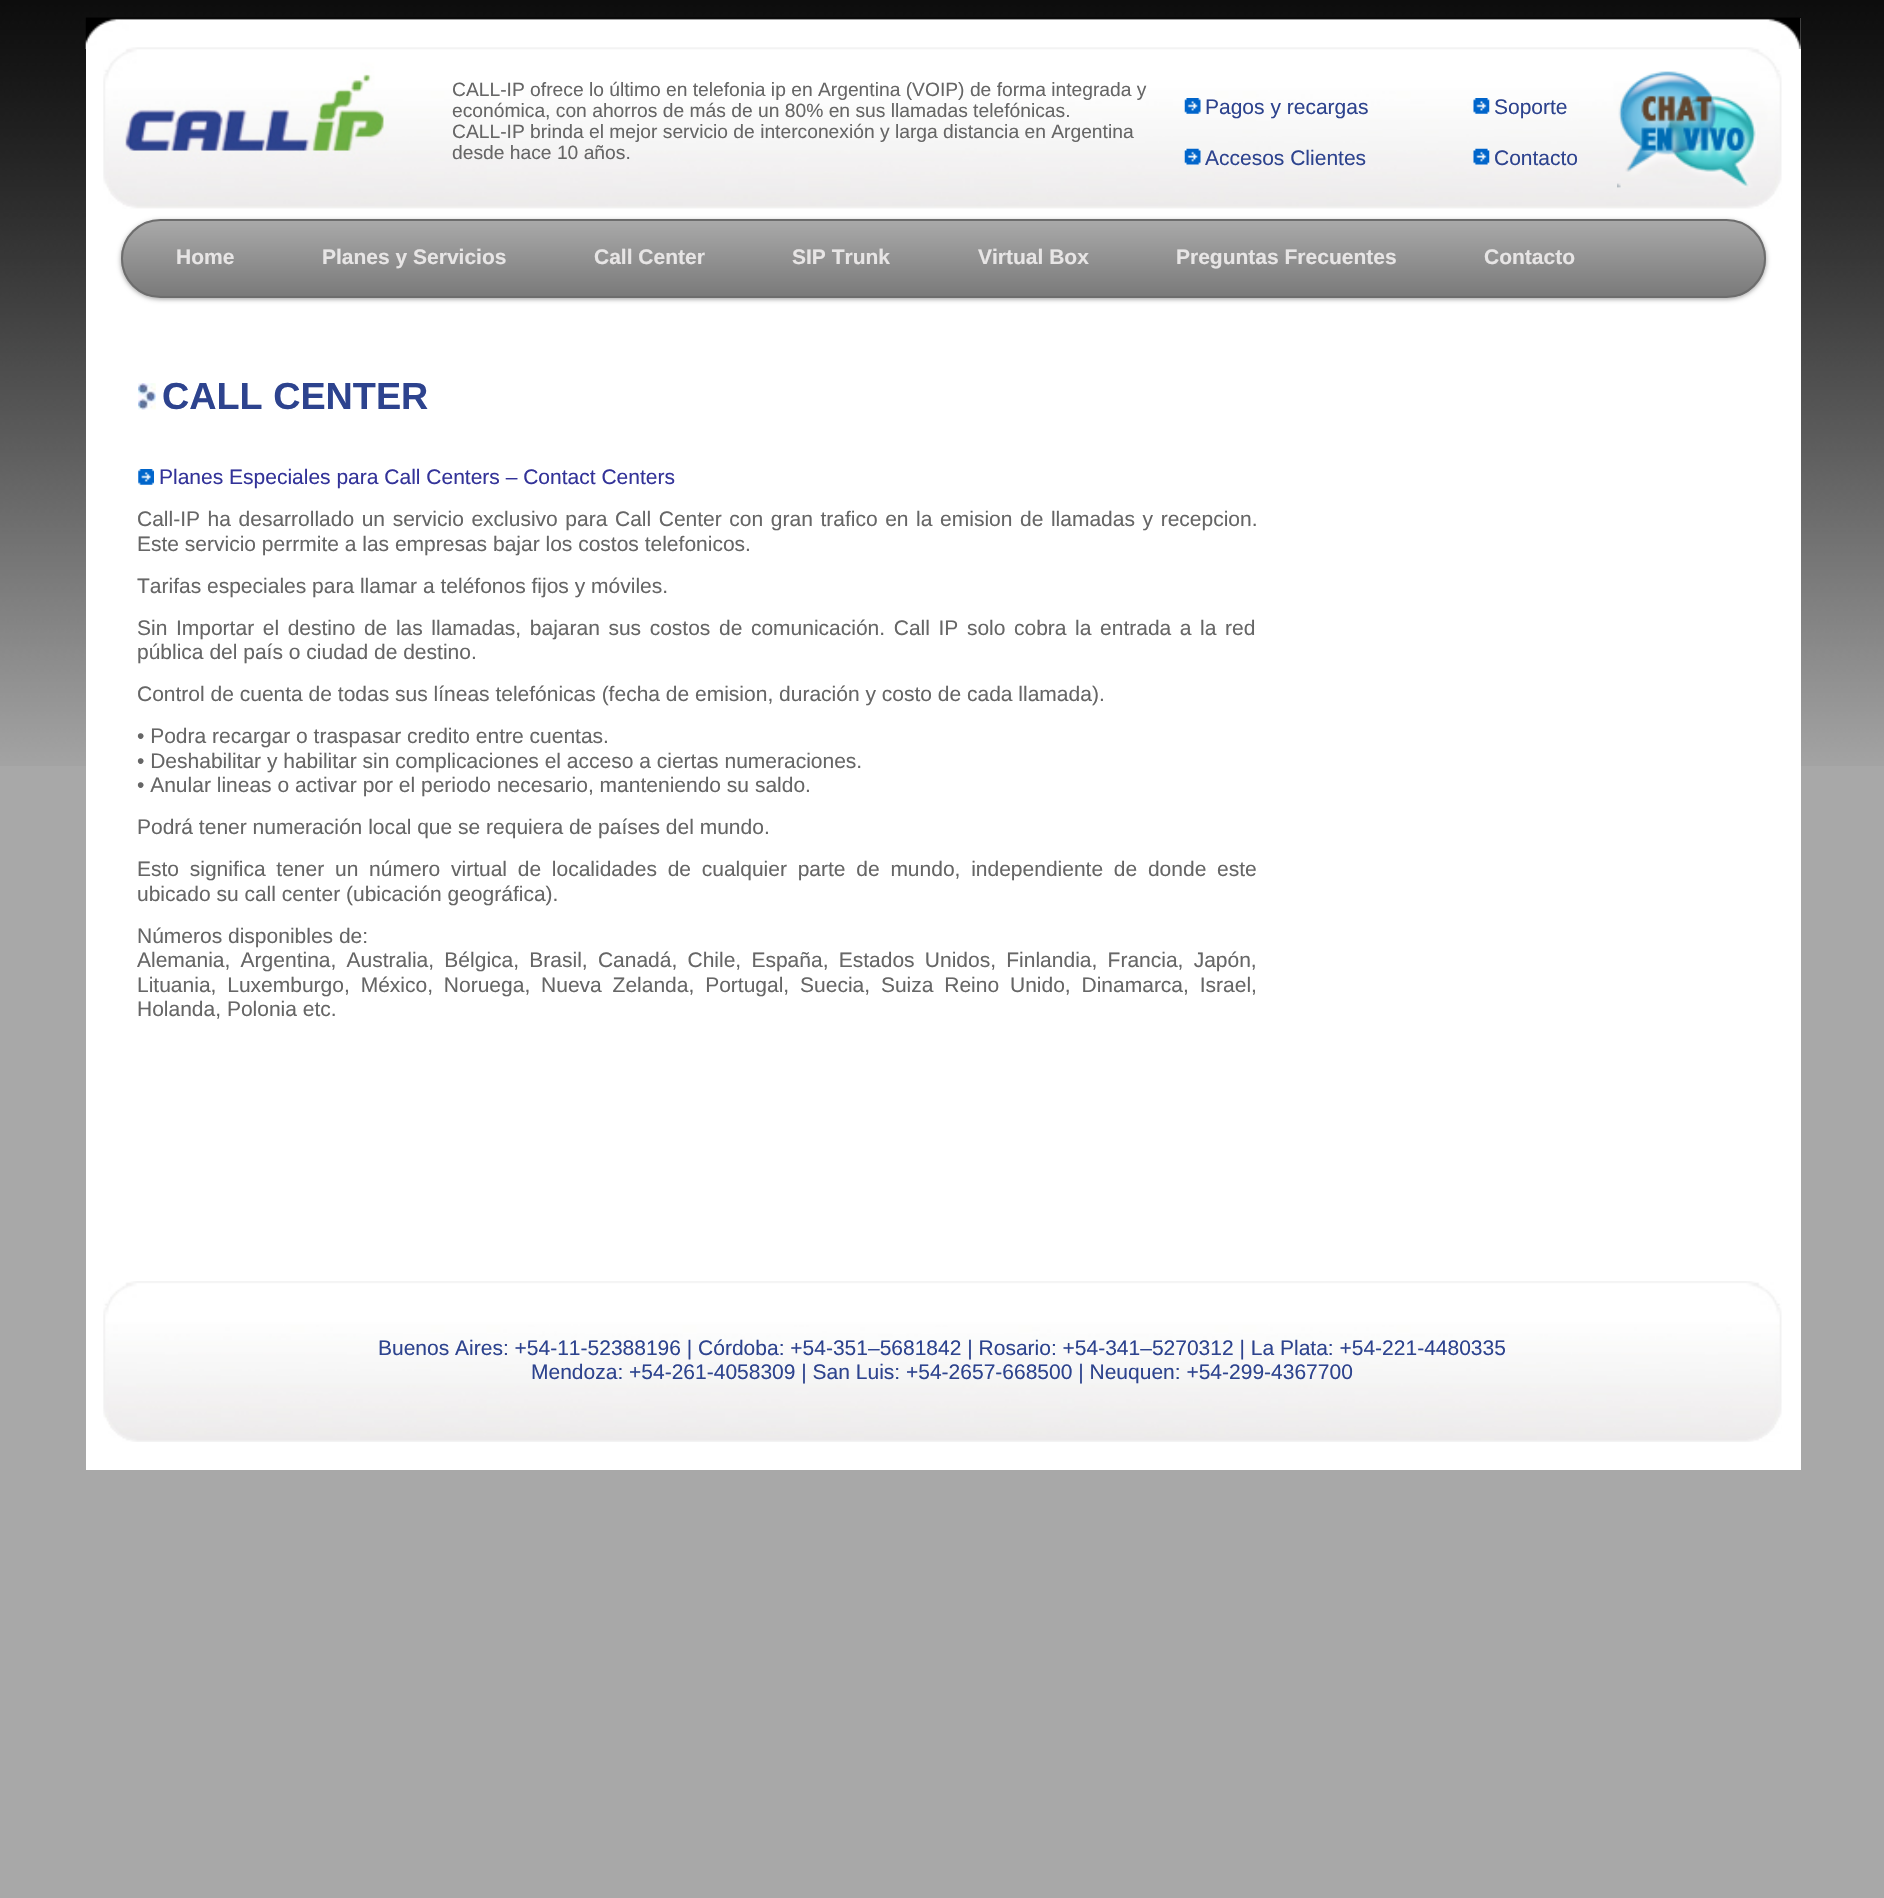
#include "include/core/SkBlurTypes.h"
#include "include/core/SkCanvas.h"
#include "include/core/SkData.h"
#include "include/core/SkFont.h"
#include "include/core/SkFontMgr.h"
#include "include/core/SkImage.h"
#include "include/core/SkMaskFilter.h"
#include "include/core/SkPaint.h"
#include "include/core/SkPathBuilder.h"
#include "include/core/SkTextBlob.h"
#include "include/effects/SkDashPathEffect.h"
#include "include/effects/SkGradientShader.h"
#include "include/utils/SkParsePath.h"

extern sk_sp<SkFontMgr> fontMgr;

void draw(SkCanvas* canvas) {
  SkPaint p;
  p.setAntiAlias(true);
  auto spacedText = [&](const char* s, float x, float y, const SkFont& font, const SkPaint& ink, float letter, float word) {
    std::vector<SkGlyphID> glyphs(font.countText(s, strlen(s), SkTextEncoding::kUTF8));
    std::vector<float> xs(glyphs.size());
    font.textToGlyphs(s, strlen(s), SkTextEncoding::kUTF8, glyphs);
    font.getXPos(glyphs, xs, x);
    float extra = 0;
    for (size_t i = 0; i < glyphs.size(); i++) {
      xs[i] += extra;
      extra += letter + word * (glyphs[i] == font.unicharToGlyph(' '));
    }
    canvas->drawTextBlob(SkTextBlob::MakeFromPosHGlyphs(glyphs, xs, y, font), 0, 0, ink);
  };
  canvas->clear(SkColorSetRGB(168, 168, 168));
  canvas->drawImageRect(SkImages::DeferredFromEncodedData(SkData::MakeFromFileName("images/1.png")), SkRect::MakeLTRB(0, 0, 1884, 766), SkSamplingOptions());
  p.setColor(SK_ColorWHITE);
  canvas->drawRect(SkRect::MakeLTRB(86, 18, 1801, 1470), p);
  canvas->drawImageRect(SkImages::DeferredFromEncodedData(SkData::MakeFromFileName("images/2.png")), SkRect::MakeLTRB(85, 17, 1801, 49), SkSamplingOptions());
  canvas->drawImageRect(SkImages::DeferredFromEncodedData(SkData::MakeFromFileName("images/3.png")), SkRect::MakeLTRB(103, 47, 1782, 209), SkSamplingOptions());
  canvas->drawImageRect(SkImages::DeferredFromEncodedData(SkData::MakeFromFileName("images/4.png")), SkRect::MakeLTRB(1184, 98, 1201, 114), SkSamplingOptions());
  canvas->drawImageRect(SkImages::DeferredFromEncodedData(SkData::MakeFromFileName("images/5.png")), SkRect::MakeLTRB(1473, 98, 1490, 114), SkSamplingOptions());
  canvas->drawImageRect(SkImages::DeferredFromEncodedData(SkData::MakeFromFileName("images/6.png")), SkRect::MakeLTRB(1184, 148, 1201, 165), SkSamplingOptions());
  canvas->drawImageRect(SkImages::DeferredFromEncodedData(SkData::MakeFromFileName("images/7.png")), SkRect::MakeLTRB(1473, 148, 1490, 165), SkSamplingOptions());
  canvas->drawImageRect(SkImages::DeferredFromEncodedData(SkData::MakeFromFileName("images/8.png")), SkRect::MakeLTRB(1617, 71, 1757, 188), SkSamplingOptions());
  p.setColor(SkColorSetARGB(102, 0, 0, 0));
  p.setMaskFilter(SkMaskFilter::MakeBlur(kNormal_SkBlurStyle, 2.5f));
  canvas->drawRoundRect(SkRect::MakeLTRB(121, 221, 1766, 299), 39, 39, p);
  p.setMaskFilter(nullptr);
  canvas->save();
  canvas->clipPath(SkPathBuilder().moveTo(160.5f, 219).lineTo(1726.5f, 219).cubicTo(1748.5f, 219, 1766, 236.5f, 1766, 258.5f).cubicTo(1766, 280.5f, 1748.5f, 298, 1726.5f, 298).lineTo(160.5f, 298).cubicTo(138.5f, 298, 121, 280.5f, 121, 258.5f).cubicTo(121, 236.5f, 138.5f, 219, 160.5f, 219).close().detach(), true);
  {
    const SkColor colors[] = {SkColorSetRGB(169, 169, 169), SkColorSetRGB(122, 122, 122)};
    const float stops[] = {0, 1};
    const SkPoint ends[] = {{123, 221}, {123, 296}};
    p.setShader(SkGradientShader::MakeLinear(ends, colors, stops, 2, SkTileMode::kClamp));
    p.setAlpha(255);
  }
  canvas->drawRect(SkRect::MakeLTRB(121, 221, 1766, 296), p);
  canvas->restore();
  p.setStyle(SkPaint::kStroke_Style);
  p.setStrokeWidth(2);
  p.setShader(nullptr);
  p.setColor(SkColorSetRGB(109, 109, 109));
  canvas->drawRoundRect(SkRect::MakeLTRB(122, 220, 1765, 297), 38.5f, 38.5f, p);
  canvas->drawImageRect(SkImages::DeferredFromEncodedData(SkData::MakeFromFileName("images/9.png")), SkRect::MakeLTRB(138, 383, 156, 410), SkSamplingOptions());
  canvas->drawImageRect(SkImages::DeferredFromEncodedData(SkData::MakeFromFileName("images/10.png")), SkRect::MakeLTRB(138, 469, 154, 485), SkSamplingOptions());
  canvas->drawImageRect(SkImages::DeferredFromEncodedData(SkData::MakeFromFileName("images/11.png")), SkRect::MakeLTRB(103, 1281, 1782, 1442), SkSamplingOptions());
  SkFont font1(fontMgr->matchFamilyStyle("Liberation Sans", SkFontStyle::Normal()), 19.25f);
  font1.setSubpixel(true);
  p.setStyle(SkPaint::kFill_Style);
  p.setColor(SkColorSetRGB(102, 102, 102));
  canvas->drawString("CALL-IP ofrece lo último en telefonia ip en Argentina (VOIP) de forma integrada y", 452, 96, font1, p);
  canvas->drawString("económica, con ahorros de más de un 80% en sus llamadas telefónicas.", 452, 117, font1, p);
  canvas->drawString("CALL-IP brinda el mejor servicio de interconexión y larga distancia en Argentina", 452, 138, font1, p);
  canvas->drawString("desde hace 10 años.", 452, 159, font1, p);
  SkFont font2(fontMgr->matchFamilyStyle("Liberation Sans", SkFontStyle::Normal()), 21);
  font2.setSubpixel(true);
  p.setColor(SkColorSetRGB(45, 67, 142));
  canvas->drawString("Pagos y recargas", 1205, 114, font2, p);
  canvas->drawString("Soporte", 1494, 114, font2, p);
  canvas->drawString("Accesos Clientes", 1205, 165, font2, p);
  canvas->drawString("Contacto", 1494, 165, font2, p);
  SkFont font3(fontMgr->matchFamilyStyle("Liberation Sans", SkFontStyle::Bold()), 21);
  font3.setSubpixel(true);
  p.setColor(SkColorSetRGB(231, 229, 229));
  canvas->drawString("Home", 176, 264, font3, p);
  canvas->drawString("Planes y Servicios", 322, 264, font3, p);
  canvas->drawString("Call Center", 594, 264, font3, p);
  canvas->drawString("SIP Trunk", 792, 264, font3, p);
  canvas->drawString("Virtual Box", 978, 264, font3, p);
  canvas->drawString("Preguntas Frecuentes", 1176, 264, font3, p);
  canvas->drawString("Contacto", 1484, 264, font3, p);
  SkFont font4(fontMgr->matchFamilyStyle("Liberation Sans", SkFontStyle::Bold()), 37.75f);
  font4.setSubpixel(true);
  p.setColor(SkColorSetRGB(45, 67, 142));
  canvas->drawString("CALL CENTER", 162, 409, font4, p);
  p.setColor(SkColorSetRGB(51, 51, 153));
  canvas->drawString("Planes Especiales para Call Centers – Contact Centers", 159, 484, font2, p);
  p.setColor(SkColorSetRGB(102, 102, 102));
  spacedText("Call-IP ha desarrollado un servicio exclusivo para Call Center con gran trafico en la emision de llamadas y recepcion.", 137, 526, font2, p, 0, 1.75f);
  canvas->drawString("Este servicio perrmite a las empresas bajar los costos telefonicos.", 137, 551, font2, p);
  canvas->drawString("Tarifas especiales para llamar a teléfonos fijos y móviles.", 137, 593, font2, p);
  spacedText("Sin Importar el destino de las llamadas, bajaran sus costos de comunicación. Call IP solo cobra la entrada a la red", 137, 635, font2, p, 0, 2.75f);
  canvas->drawString("pública del país o ciudad de destino.", 137, 659, font2, p);
  canvas->drawString("Control de cuenta de todas sus líneas telefónicas (fecha de emision, duración y costo de cada llamada).", 137, 701, font2, p);
  canvas->drawString("• Podra recargar o traspasar credito entre cuentas.", 137, 743, font2, p);
  canvas->drawString("• Deshabilitar y habilitar sin complicaciones el acceso a ciertas numeraciones.", 137, 768, font2, p);
  canvas->drawString("• Anular lineas o activar por el periodo necesario, manteniendo su saldo.", 137, 792, font2, p);
  canvas->drawString("Podrá tener numeración local que se requiera de países del mundo.", 137, 834, font2, p);
  spacedText("Esto significa tener un número virtual de localidades de cualquier parte de mundo, independiente de donde este", 137, 876, font2, p, 0, 4.9f);
  canvas->drawString("ubicado su call center (ubicación geográfica).", 137, 901, font2, p);
  canvas->drawString("Números disponibles de:", 137, 943, font2, p);
  spacedText("Alemania, Argentina, Australia, Bélgica, Brasil, Canadá, Chile, España, Estados Unidos, Finlandia, Francia, Japón,", 137, 967, font2, p, 0, 4.4f);
  spacedText("Lituania, Luxemburgo, México, Noruega, Nueva Zelanda, Portugal, Suecia, Suiza Reino Unido, Dinamarca, Israel,", 137, 992, font2, p, 0, 5);
  canvas->drawString("Holanda, Polonia etc.", 137, 1016, font2, p);
  p.setColor(SkColorSetRGB(45, 67, 142));
  canvas->drawString("Buenos Aires: +54-11-52388196 | Córdoba: +54-351–5681842 | Rosario: +54-341–5270312 | La Plata: +54-221-4480335", 378, 1355, font2, p);
  canvas->drawString("Mendoza: +54-261-4058309 | San Luis: +54-2657-668500 | Neuquen: +54-299-4367700", 531, 1379, font2, p);
}
